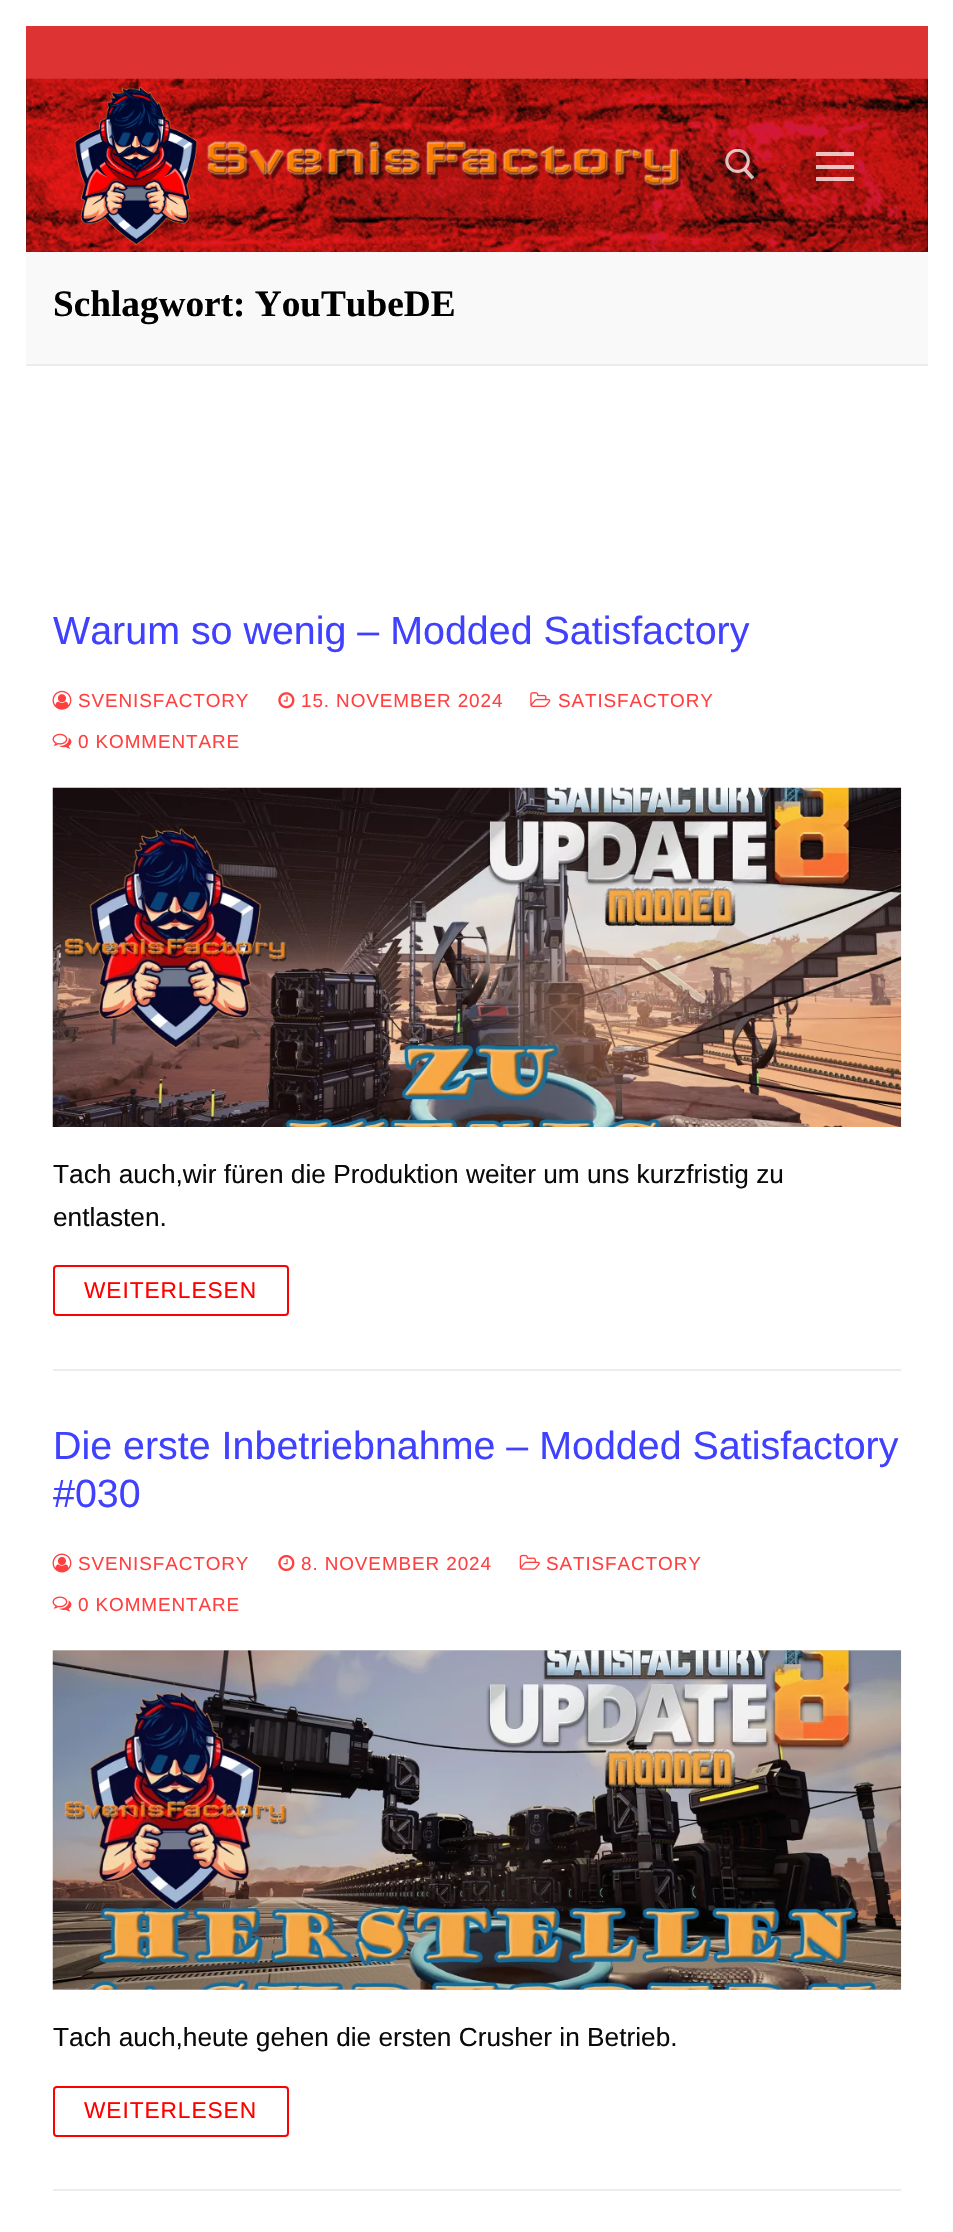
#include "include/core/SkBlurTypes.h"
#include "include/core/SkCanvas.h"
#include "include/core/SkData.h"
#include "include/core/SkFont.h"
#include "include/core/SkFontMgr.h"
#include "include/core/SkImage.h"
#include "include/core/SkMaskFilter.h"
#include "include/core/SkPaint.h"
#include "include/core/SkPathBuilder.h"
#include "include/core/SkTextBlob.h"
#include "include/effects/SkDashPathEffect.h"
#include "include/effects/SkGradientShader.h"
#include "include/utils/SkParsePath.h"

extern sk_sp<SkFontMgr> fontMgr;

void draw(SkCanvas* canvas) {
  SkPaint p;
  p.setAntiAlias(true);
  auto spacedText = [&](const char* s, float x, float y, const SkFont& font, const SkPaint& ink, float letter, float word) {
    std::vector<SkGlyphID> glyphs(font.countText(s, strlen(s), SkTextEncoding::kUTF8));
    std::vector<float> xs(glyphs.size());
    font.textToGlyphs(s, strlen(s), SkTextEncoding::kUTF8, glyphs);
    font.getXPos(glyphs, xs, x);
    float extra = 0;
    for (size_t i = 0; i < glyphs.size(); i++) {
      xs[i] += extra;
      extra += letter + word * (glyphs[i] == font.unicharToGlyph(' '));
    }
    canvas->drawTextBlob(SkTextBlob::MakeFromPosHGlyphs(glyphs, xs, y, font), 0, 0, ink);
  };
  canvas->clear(SK_ColorWHITE);
  p.setColor(SkColorSetRGB(221, 51, 51));
  canvas->drawRect(SkRect::MakeLTRB(26, 26, 928, 79), p);
  p.setColor(SkColorSetRGB(26, 26, 26));
  canvas->drawRect(SkRect::MakeLTRB(26, 79, 928, 252), p);
  canvas->drawImageRect(SkImages::DeferredFromEncodedData(SkData::MakeFromFileName("images/1.png")), SkRect::MakeLTRB(26, 78, 928, 252), SkSamplingOptions());
  canvas->drawImageRect(SkImages::DeferredFromEncodedData(SkData::MakeFromFileName("images/2.png")), SkRect::MakeLTRB(74, 86, 681, 245), SkSamplingOptions());
  canvas->drawImageRect(SkImages::DeferredFromEncodedData(SkData::MakeFromFileName("images/3.png")), SkRect::MakeLTRB(725, 149, 755, 180), SkSamplingOptions());
  p.setColor(SkColorSetARGB(191, 255, 255, 255));
  canvas->drawRect(SkRect::MakeLTRB(816, 165, 854, 169), p);
  canvas->drawRect(SkRect::MakeLTRB(816, 152, 854, 156), p);
  canvas->drawRect(SkRect::MakeLTRB(816, 177, 854, 181), p);
  p.setColor(SkColorSetRGB(249, 249, 249));
  canvas->drawRect(SkRect::MakeLTRB(26, 252, 928, 364), p);
  p.setColor(SkColorSetRGB(234, 236, 238));
  canvas->drawRect(SkRect::MakeLTRB(26, 364, 928, 366), p);
  canvas->drawRect(SkRect::MakeLTRB(53, 1369, 901, 1371), p);
  canvas->drawImageRect(SkImages::DeferredFromEncodedData(SkData::MakeFromFileName("images/4.png")), SkRect::MakeLTRB(52, 690, 72, 710), SkSamplingOptions());
  canvas->drawImageRect(SkImages::DeferredFromEncodedData(SkData::MakeFromFileName("images/5.png")), SkRect::MakeLTRB(278, 692, 295, 709), SkSamplingOptions());
  canvas->drawImageRect(SkImages::DeferredFromEncodedData(SkData::MakeFromFileName("images/6.png")), SkRect::MakeLTRB(530, 692, 551, 707), SkSamplingOptions());
  canvas->drawImageRect(SkImages::DeferredFromEncodedData(SkData::MakeFromFileName("images/7.png")), SkRect::MakeLTRB(52, 733, 72, 749), SkSamplingOptions());
  canvas->drawImageRect(SkImages::DeferredFromEncodedData(SkData::MakeFromFileName("images/8.png")), SkRect::MakeLTRB(52, 787, 902, 1127), SkSamplingOptions());
  p.setStyle(SkPaint::kStroke_Style);
  p.setStrokeWidth(2);
  p.setColor(SkColorSetRGB(255, 0, 0));
  canvas->drawRoundRect(SkRect::MakeLTRB(54, 1266, 288, 1315), 3, 3, p);
  p.setStyle(SkPaint::kFill_Style);
  p.setColor(SkColorSetRGB(234, 236, 238));
  canvas->drawRect(SkRect::MakeLTRB(53, 2189, 901, 2191), p);
  canvas->drawImageRect(SkImages::DeferredFromEncodedData(SkData::MakeFromFileName("images/9.png")), SkRect::MakeLTRB(52, 1553, 72, 1573), SkSamplingOptions());
  canvas->drawImageRect(SkImages::DeferredFromEncodedData(SkData::MakeFromFileName("images/10.png")), SkRect::MakeLTRB(278, 1554, 295, 1572), SkSamplingOptions());
  canvas->drawImageRect(SkImages::DeferredFromEncodedData(SkData::MakeFromFileName("images/11.png")), SkRect::MakeLTRB(519, 1554, 540, 1570), SkSamplingOptions());
  canvas->drawImageRect(SkImages::DeferredFromEncodedData(SkData::MakeFromFileName("images/12.png")), SkRect::MakeLTRB(52, 1596, 72, 1612), SkSamplingOptions());
  p.setColor(SkColorSetRGB(213, 213, 213));
  canvas->drawRect(SkRect::MakeLTRB(53, 1650, 901, 1990), p);
  canvas->drawImageRect(SkImages::DeferredFromEncodedData(SkData::MakeFromFileName("images/13.png")), SkRect::MakeLTRB(52, 1650, 902, 1990), SkSamplingOptions());
  p.setStyle(SkPaint::kStroke_Style);
  p.setColor(SkColorSetRGB(255, 0, 0));
  canvas->drawRoundRect(SkRect::MakeLTRB(54, 2087, 288, 2136), 3, 3, p);
  SkFont font1(fontMgr->matchFamilyStyle("Liberation Serif", SkFontStyle::Bold()), 37.25f);
  font1.setSubpixel(true);
  p.setStyle(SkPaint::kFill_Style);
  p.setColor(SK_ColorBLACK);
  canvas->drawString("Schlagwort: YouTubeDE", 53, 316, font1, p);
  SkFont font2(fontMgr->matchFamilyStyle("Liberation Sans", SkFontStyle::Normal()), 39.4f);
  font2.setSubpixel(true);
  p.setColor(SkColorSetRGB(64, 64, 255));
  canvas->drawString("Warum so wenig – Modded Satisfactory", 53, 644, font2, p);
  SkFont font3(fontMgr->matchFamilyStyle("Liberation Sans", SkFontStyle::Normal()), 18.9f);
  font3.setSubpixel(true);
  p.setColor(SkColorSetRGB(255, 64, 64));
  spacedText("SVENISFACTORY", 78, 707, font3, p, 0.9f, 0);
  spacedText("15. NOVEMBER 2024", 301, 707, font3, p, 0.9f, 0);
  spacedText("SATISFACTORY", 558, 707, font3, p, 0.9f, 0);
  spacedText("0 KOMMENTARE", 78, 748, font3, p, 0.9f, 0);
  SkFont font4(fontMgr->matchFamilyStyle("Liberation Sans", SkFontStyle::Normal()), 26.25f);
  font4.setSubpixel(true);
  p.setColor(SkColorSetRGB(10, 10, 10));
  canvas->drawString("Tach auch,wir füren die Produktion weiter um uns kurzfristig zu", 53, 1183, font4, p);
  canvas->drawString("entlasten.", 53, 1226, font4, p);
  SkFont font5(fontMgr->matchFamilyStyle("Liberation Sans", SkFontStyle::Normal()), 22.75f);
  font5.setSubpixel(true);
  p.setColor(SkColorSetRGB(255, 0, 0));
  spacedText("WEITERLESEN", 84, 1298, font5, p, 0.9f, 0);
  p.setColor(SkColorSetRGB(64, 64, 255));
  canvas->drawString("Die erste Inbetriebnahme – Modded Satisfactory", 53, 1459, font2, p);
  canvas->drawString("#030", 53, 1507, font2, p);
  p.setColor(SkColorSetRGB(255, 64, 64));
  spacedText("SVENISFACTORY", 78, 1570, font3, p, 0.9f, 0);
  spacedText("8. NOVEMBER 2024", 301, 1570, font3, p, 0.9f, 0);
  spacedText("SATISFACTORY", 546, 1570, font3, p, 0.9f, 0);
  spacedText("0 KOMMENTARE", 78, 1611, font3, p, 0.9f, 0);
  p.setColor(SkColorSetRGB(10, 10, 10));
  canvas->drawString("Tach auch,heute gehen die ersten Crusher in Betrieb.", 53, 2046, font4, p);
  p.setColor(SkColorSetRGB(255, 0, 0));
  spacedText("WEITERLESEN", 84, 2118, font5, p, 0.9f, 0);
}
